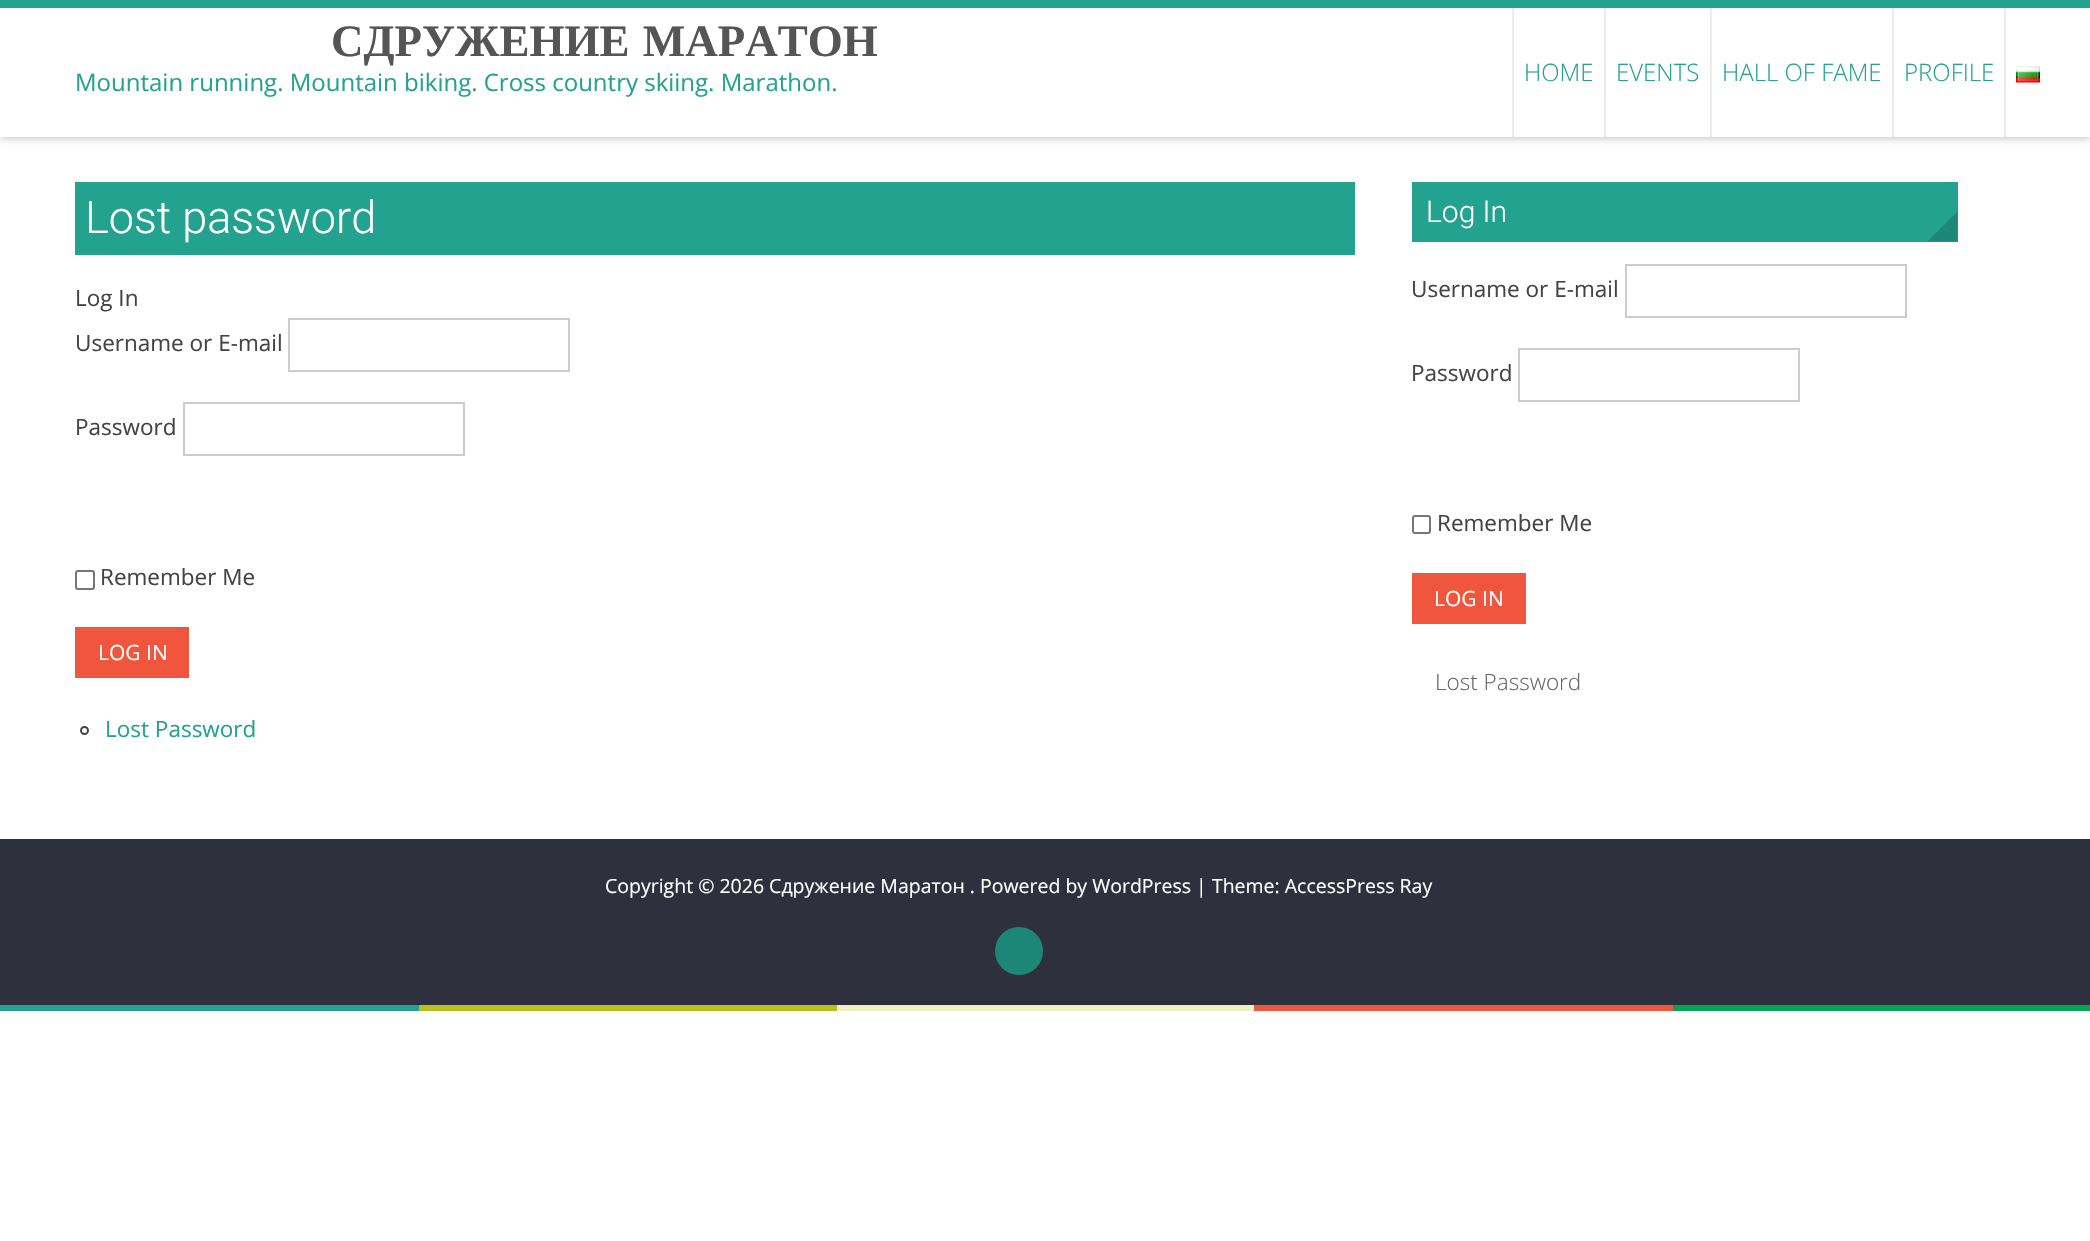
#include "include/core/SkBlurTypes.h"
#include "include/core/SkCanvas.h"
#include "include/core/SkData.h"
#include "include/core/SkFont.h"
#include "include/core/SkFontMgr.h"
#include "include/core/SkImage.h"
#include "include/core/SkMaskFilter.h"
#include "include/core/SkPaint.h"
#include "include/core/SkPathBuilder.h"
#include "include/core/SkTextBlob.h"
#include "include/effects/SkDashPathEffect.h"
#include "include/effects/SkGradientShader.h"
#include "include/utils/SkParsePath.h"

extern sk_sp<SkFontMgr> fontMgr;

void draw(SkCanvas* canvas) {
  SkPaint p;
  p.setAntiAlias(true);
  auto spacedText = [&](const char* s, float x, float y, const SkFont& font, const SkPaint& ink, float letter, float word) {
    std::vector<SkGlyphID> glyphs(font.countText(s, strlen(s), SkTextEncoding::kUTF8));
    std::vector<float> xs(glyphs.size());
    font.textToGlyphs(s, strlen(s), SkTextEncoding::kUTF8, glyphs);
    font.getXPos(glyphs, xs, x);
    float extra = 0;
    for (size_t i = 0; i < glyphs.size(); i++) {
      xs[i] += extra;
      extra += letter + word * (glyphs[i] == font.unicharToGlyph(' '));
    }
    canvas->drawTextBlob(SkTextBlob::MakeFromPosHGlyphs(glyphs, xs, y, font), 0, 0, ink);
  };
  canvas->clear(SK_ColorWHITE);
  p.setColor(SkColorSetARGB(77, 0, 0, 0));
  p.setMaskFilter(SkMaskFilter::MakeBlur(kNormal_SkBlurStyle, 4.5f));
  canvas->drawRect(SkRect::MakeLTRB(0, 0, 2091, 137), p);
  p.setMaskFilter(nullptr);
  p.setColor(SK_ColorWHITE);
  canvas->drawRect(SkRect::MakeLTRB(0, 8, 2090, 137), p);
  p.setColor(SkColorSetRGB(35, 163, 143));
  canvas->drawRect(SkRect::MakeLTRB(0, 0, 2090, 8), p);
  p.setColor(SkColorSetRGB(236, 236, 236));
  canvas->drawRect(SkRect::MakeLTRB(1512, 8, 1514, 137), p);
  canvas->drawRect(SkRect::MakeLTRB(1604, 8, 1606, 137), p);
  canvas->drawRect(SkRect::MakeLTRB(1710, 8, 1712, 137), p);
  canvas->drawRect(SkRect::MakeLTRB(1892, 8, 1894, 137), p);
  canvas->drawRect(SkRect::MakeLTRB(2004, 8, 2006, 137), p);
  canvas->drawImageRect(SkImages::DeferredFromEncodedData(SkData::MakeFromFileName("images/1.png")), SkRect::MakeLTRB(2016, 66, 2040, 83), SkSamplingOptions());
  p.setColor(SkColorSetRGB(35, 163, 143));
  canvas->drawRect(SkRect::MakeLTRB(75, 182, 1355, 255), p);
  p.setStyle(SkPaint::kStroke_Style);
  p.setStrokeWidth(2);
  p.setColor(SkColorSetRGB(204, 204, 204));
  canvas->drawRect(SkRect::MakeLTRB(289, 319, 569, 371), p);
  canvas->drawRect(SkRect::MakeLTRB(184, 403, 464, 455), p);
  p.setColor(SkColorSetRGB(118, 118, 118));
  canvas->drawRoundRect(SkRect::MakeLTRB(76, 571, 94, 589), 2, 2, p);
  p.setStyle(SkPaint::kFill_Style);
  p.setColor(SkColorSetRGB(240, 86, 61));
  canvas->drawRect(SkRect::MakeLTRB(75, 627, 189, 678), p);
  p.setStyle(SkPaint::kStroke_Style);
  p.setColor(SkColorSetRGB(68, 68, 68));
  canvas->drawCircle(84.5f, 730.5f, 3.5f, p);
  p.setStyle(SkPaint::kFill_Style);
  p.setColor(SkColorSetRGB(35, 163, 143));
  canvas->drawRect(SkRect::MakeLTRB(1412, 182, 1958, 242), p);
  p.setColor(SkColorSetRGB(28, 135, 118));
  canvas->drawPath(SkPathBuilder().moveTo(1957.5f, 211.5f).lineTo(1957.5f, 241.5f).lineTo(1942.5f, 226.5f).close().detach(), p);
  canvas->drawPath(SkPathBuilder().moveTo(1957.5f, 241.5f).lineTo(1927.5f, 241.5f).lineTo(1942.5f, 226.5f).close().detach(), p);
  p.setStyle(SkPaint::kStroke_Style);
  p.setColor(SkColorSetRGB(204, 204, 204));
  canvas->drawRect(SkRect::MakeLTRB(1626, 265, 1906, 317), p);
  canvas->drawRect(SkRect::MakeLTRB(1519, 349, 1799, 401), p);
  p.setColor(SkColorSetRGB(118, 118, 118));
  canvas->drawRoundRect(SkRect::MakeLTRB(1413, 516, 1430, 533), 2, 2, p);
  p.setStyle(SkPaint::kFill_Style);
  p.setColor(SkColorSetRGB(240, 86, 61));
  canvas->drawRect(SkRect::MakeLTRB(1412, 573, 1526, 624), p);
  p.setColor(SkColorSetRGB(46, 49, 61));
  canvas->drawRect(SkRect::MakeLTRB(0, 839, 2090, 1005), p);
  p.setColor(SkColorSetRGB(28, 135, 118));
  canvas->drawCircle(1019, 951, 24, p);
  p.setColor(SkColorSetRGB(35, 163, 143));
  canvas->drawRect(SkRect::MakeLTRB(0, 1005, 419, 1011), p);
  p.setColor(SkColorSetRGB(183, 193, 30));
  canvas->drawRect(SkRect::MakeLTRB(419, 1005, 837, 1011), p);
  p.setColor(SkColorSetRGB(239, 241, 194));
  canvas->drawRect(SkRect::MakeLTRB(837, 1005, 1254, 1011), p);
  p.setColor(SkColorSetRGB(240, 86, 61));
  canvas->drawRect(SkRect::MakeLTRB(1254, 1005, 1673, 1011), p);
  p.setColor(SkColorSetRGB(0, 166, 81));
  canvas->drawRect(SkRect::MakeLTRB(1673, 1005, 2090, 1011), p);
  SkFont font1(fontMgr->matchFamilyStyle("Liberation Serif", SkFontStyle::Bold()), 45);
  font1.setSubpixel(true);
  p.setColor(SkColorSetRGB(85, 85, 85));
  spacedText("СДРУЖЕНИЕ МАРАТОН", 331, 56, font1, p, 0, 2);
  SkFont font2(fontMgr->matchFamilyStyle("Open Sans", SkFontStyle::Normal()), 24);
  font2.setSubpixel(true);
  p.setColor(SkColorSetRGB(35, 163, 143));
  canvas->drawString("Mountain running. Mountain biking. Cross country skiing. Marathon.", 75, 91, font2, p);
  SkFont font3(fontMgr->matchFamilyStyle("Open Sans", SkFontStyle(300, SkFontStyle::kNormal_Width, SkFontStyle::kUpright_Slant)), 24);
  font3.setSubpixel(true);
  canvas->drawString("HOME", 1524, 81, font3, p);
  canvas->drawString("EVENTS", 1616, 81, font3, p);
  canvas->drawString("HALL OF FAME", 1722, 81, font3, p);
  canvas->drawString("PROFILE", 1904, 81, font3, p);
  SkFont font4(fontMgr->matchFamilyStyle("Roboto", SkFontStyle(300, SkFontStyle::kNormal_Width, SkFontStyle::kUpright_Slant)), 45);
  font4.setSubpixel(true);
  p.setColor(SK_ColorWHITE);
  canvas->drawString("Lost password", 85, 233, font4, p);
  SkFont font5(fontMgr->matchFamilyStyle("Open Sans", SkFontStyle::Normal()), 22.5f);
  font5.setSubpixel(true);
  p.setColor(SkColorSetRGB(68, 68, 68));
  canvas->drawString("Log In", 75, 306, font5, p);
  canvas->drawString("Username or E-mail", 75, 351, font5, p);
  canvas->drawString("Password", 75, 435, font5, p);
  canvas->drawString("Remember Me", 100, 585, font5, p);
  SkFont font6(fontMgr->matchFamilyStyle("Open Sans", SkFontStyle::Normal()), 21);
  font6.setSubpixel(true);
  p.setColor(SK_ColorWHITE);
  canvas->drawString("LOG IN", 98, 660, font6, p);
  p.setColor(SkColorSetRGB(35, 163, 143));
  canvas->drawString("Lost Password", 105, 737, font5, p);
  SkFont font7(fontMgr->matchFamilyStyle("Roboto", SkFontStyle(300, SkFontStyle::kNormal_Width, SkFontStyle::kUpright_Slant)), 30);
  font7.setSubpixel(true);
  p.setColor(SK_ColorWHITE);
  canvas->drawString("Log In", 1426, 222, font7, p);
  p.setColor(SkColorSetRGB(68, 68, 68));
  canvas->drawString("Username or E-mail", 1411, 297, font5, p);
  canvas->drawString("Password", 1411, 381, font5, p);
  canvas->drawString("Remember Me", 1437, 531, font5, p);
  p.setColor(SK_ColorWHITE);
  canvas->drawString("LOG IN", 1434, 606, font6, p);
  SkFont font8(fontMgr->matchFamilyStyle("Open Sans", SkFontStyle(300, SkFontStyle::kNormal_Width, SkFontStyle::kUpright_Slant)), 22.5f);
  font8.setSubpixel(true);
  p.setColor(SkColorSetRGB(102, 102, 102));
  canvas->drawString("Lost Password", 1435, 690, font8, p);
  SkFont font9(fontMgr->matchFamilyStyle("Open Sans", SkFontStyle::Normal()), 19.5f);
  font9.setSubpixel(true);
  p.setColor(SK_ColorWHITE);
  canvas->drawString("Copyright © 2026 Сдружение Маратон . Powered by WordPress | Theme: AccessPress Ray", 605, 893, font9, p);
}
